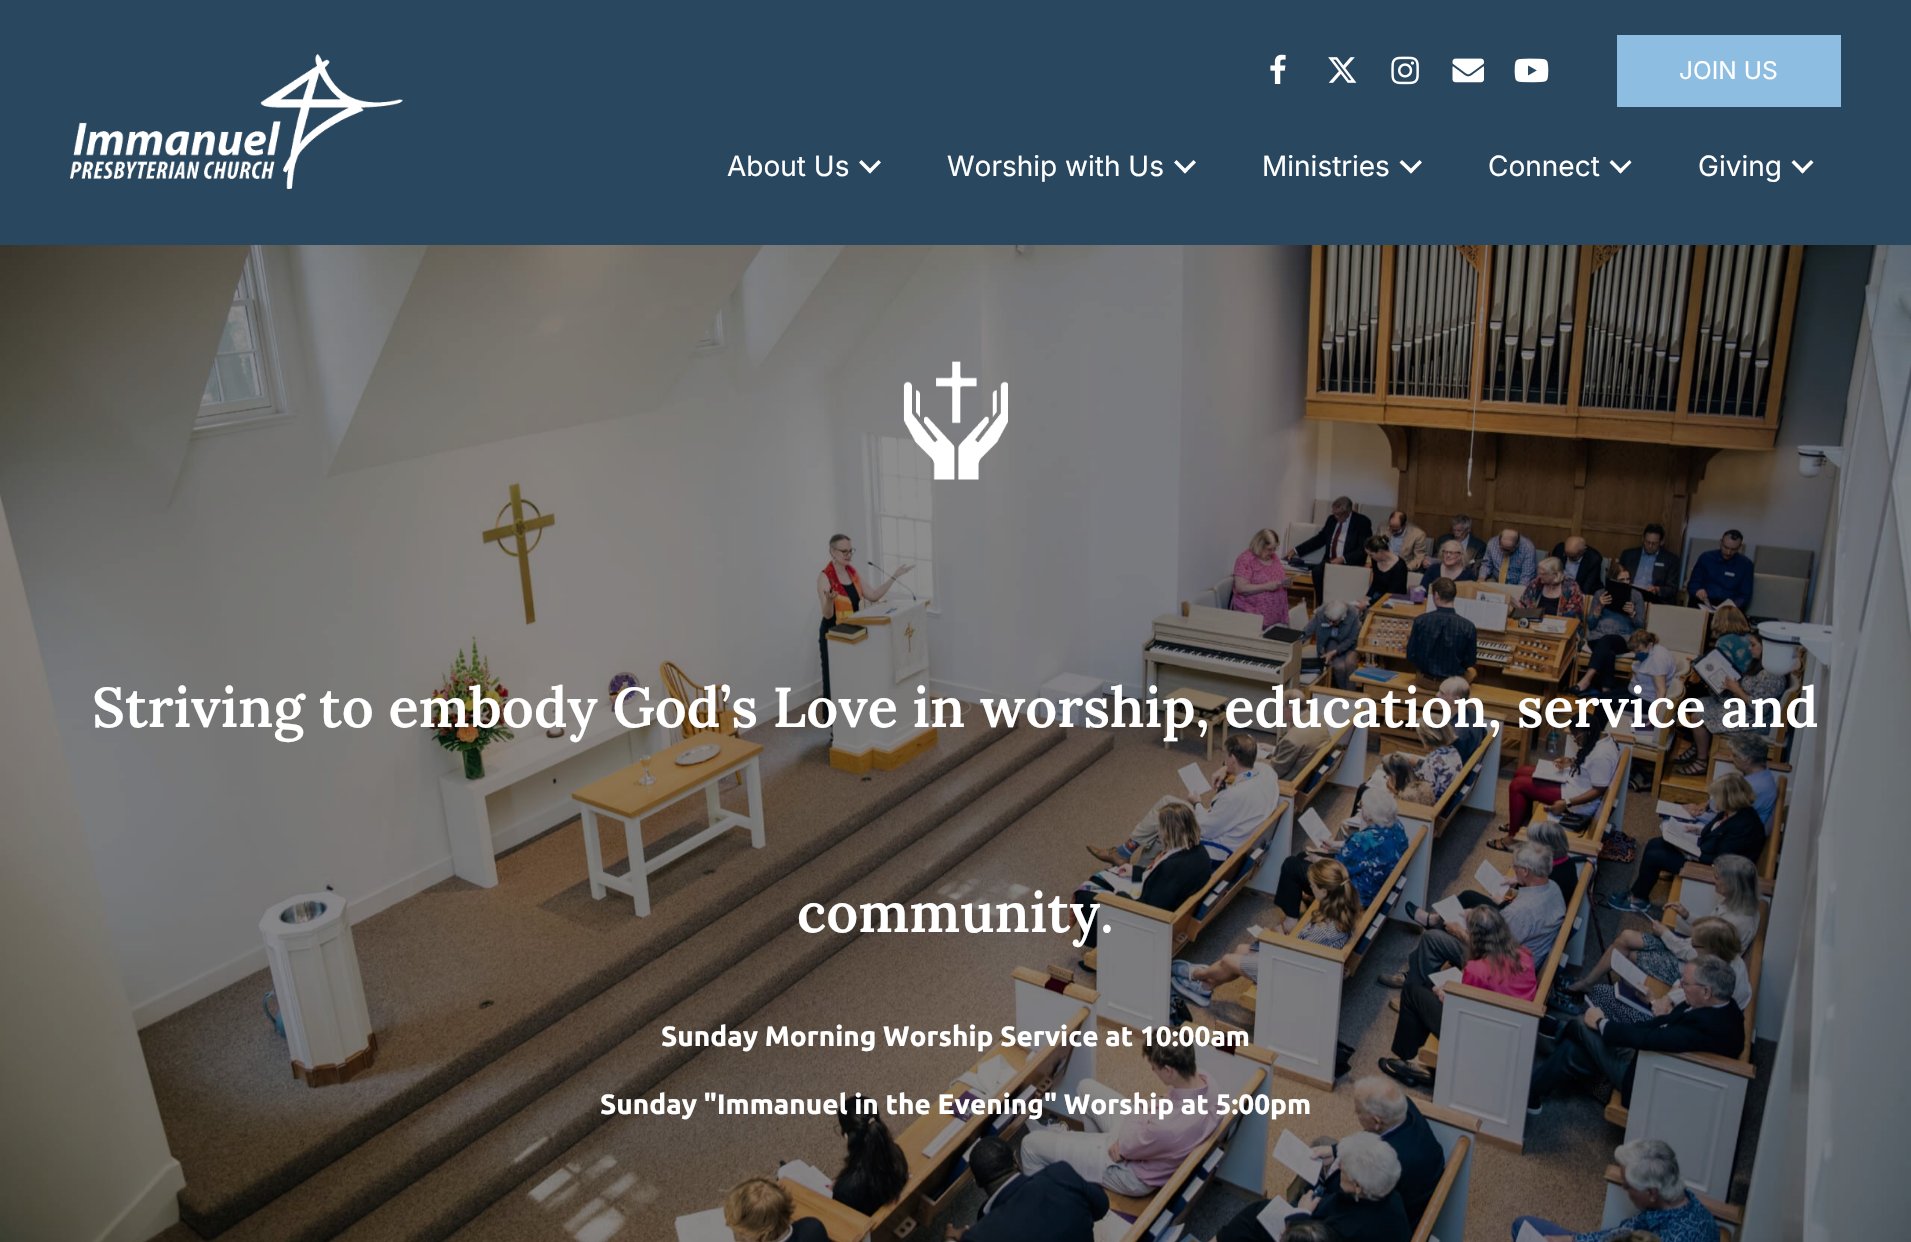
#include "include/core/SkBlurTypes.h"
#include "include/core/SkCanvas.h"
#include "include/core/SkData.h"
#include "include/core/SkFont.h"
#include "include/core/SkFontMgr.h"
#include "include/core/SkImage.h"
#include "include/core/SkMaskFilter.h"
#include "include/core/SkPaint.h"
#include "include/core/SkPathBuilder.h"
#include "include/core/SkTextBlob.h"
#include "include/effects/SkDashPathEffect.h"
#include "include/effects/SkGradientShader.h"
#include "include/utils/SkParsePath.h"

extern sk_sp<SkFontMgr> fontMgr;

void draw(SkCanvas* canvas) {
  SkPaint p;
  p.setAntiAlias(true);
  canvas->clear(SkColorSetRGB(41, 71, 95));
  canvas->drawImageRect(SkImages::DeferredFromEncodedData(SkData::MakeFromFileName("images/1.png")), SkRect::MakeLTRB(70, 54, 403, 189), SkSamplingOptions());
  canvas->drawImageRect(SkImages::DeferredFromEncodedData(SkData::MakeFromFileName("images/2.png")), SkRect::MakeLTRB(1270, 54, 1286, 84), SkSamplingOptions());
  canvas->drawImageRect(SkImages::DeferredFromEncodedData(SkData::MakeFromFileName("images/3.png")), SkRect::MakeLTRB(1328, 57, 1357, 83), SkSamplingOptions());
  canvas->drawImageRect(SkImages::DeferredFromEncodedData(SkData::MakeFromFileName("images/4.png")), SkRect::MakeLTRB(1391, 56, 1419, 85), SkSamplingOptions());
  canvas->drawImageRect(SkImages::DeferredFromEncodedData(SkData::MakeFromFileName("images/5.png")), SkRect::MakeLTRB(1452, 58, 1484, 83), SkSamplingOptions());
  canvas->drawImageRect(SkImages::DeferredFromEncodedData(SkData::MakeFromFileName("images/6.png")), SkRect::MakeLTRB(1514, 58, 1549, 83), SkSamplingOptions());
  p.setColor(SkColorSetRGB(141, 190, 226));
  canvas->drawRect(SkRect::MakeLTRB(1617, 35, 1841, 107), p);
  p.setColor(SK_ColorWHITE);
  canvas->drawPath(SkPathBuilder().moveTo(878.5f, 160).lineTo(881, 162.5f).lineTo(870, 173.5f).lineTo(867.5f, 171).close().detach(), p);
  canvas->drawPath(SkPathBuilder().moveTo(861.5f, 160).lineTo(872.5f, 171).lineTo(870, 173.5f).lineTo(859, 162.5f).close().detach(), p);
  canvas->drawPath(SkPathBuilder().moveTo(1193.5f, 160).lineTo(1196, 162.5f).lineTo(1185, 173.5f).lineTo(1182.5f, 171).close().detach(), p);
  canvas->drawPath(SkPathBuilder().moveTo(1176.5f, 160).lineTo(1187.5f, 171).lineTo(1185, 173.5f).lineTo(1174, 162.5f).close().detach(), p);
  canvas->drawPath(SkPathBuilder().moveTo(1419.5f, 160).lineTo(1422, 162.5f).lineTo(1411, 173.5f).lineTo(1408.5f, 171).close().detach(), p);
  canvas->drawPath(SkPathBuilder().moveTo(1402, 160).lineTo(1413.5f, 171).lineTo(1411, 173.5f).lineTo(1399.5f, 162.5f).close().detach(), p);
  canvas->drawPath(SkPathBuilder().moveTo(1629.5f, 160).lineTo(1631.5f, 162.5f).lineTo(1620.5f, 173.5f).lineTo(1618, 171).close().detach(), p);
  canvas->drawPath(SkPathBuilder().moveTo(1612, 160).lineTo(1623, 171).lineTo(1620.5f, 173.5f).lineTo(1609.5f, 162.5f).close().detach(), p);
  canvas->drawPath(SkPathBuilder().moveTo(1811, 160).lineTo(1813.5f, 162.5f).lineTo(1802.5f, 173.5f).lineTo(1800, 171).close().detach(), p);
  canvas->drawPath(SkPathBuilder().moveTo(1794, 160).lineTo(1805, 171).lineTo(1802.5f, 173.5f).lineTo(1791.5f, 162.5f).close().detach(), p);
  canvas->drawImageRect(SkImages::DeferredFromEncodedData(SkData::MakeFromFileName("images/7.png")), SkRect::MakeLTRB(0, 245, 1911, 1242), SkSamplingOptions());
  canvas->drawImageRect(SkImages::DeferredFromEncodedData(SkData::MakeFromFileName("images/8.png")), SkRect::MakeLTRB(903, 361, 1008, 480), SkSamplingOptions());
  SkFont font1(fontMgr->matchFamilyStyle("Inter", SkFontStyle::Normal()), 24.5f);
  font1.setSubpixel(true);
  canvas->drawString("JOIN US", 1679, 79, font1, p);
  SkFont font2(fontMgr->matchFamilyStyle("Inter", SkFontStyle::Normal()), 28);
  font2.setSubpixel(true);
  canvas->drawString("About Us", 727, 176, font2, p);
  canvas->drawString("Worship with Us", 947, 176, font2, p);
  canvas->drawString("Ministries", 1262, 176, font2, p);
  canvas->drawString("Connect", 1488, 176, font2, p);
  canvas->drawString("Giving", 1698, 176, font2, p);
  SkFont font3(fontMgr->matchFamilyStyle("Lora", SkFontStyle(600, SkFontStyle::kNormal_Width, SkFontStyle::kUpright_Slant)), 56);
  font3.setSubpixel(true);
  canvas->drawString("Striving to embody God’s Love in worship, education, service and", 92, 727, font3, p);
  canvas->drawString("community.", 797, 932, font3, p);
  SkFont font4(fontMgr->matchFamilyStyle("Ubuntu", SkFontStyle::Bold()), 28);
  font4.setSubpixel(true);
  canvas->drawString("Sunday Morning Worship Service at 10:00am", 661, 1046, font4, p);
  canvas->drawString("Sunday \"Immanuel in the Evening\" Worship at 5:00pm", 600, 1114, font4, p);
}
